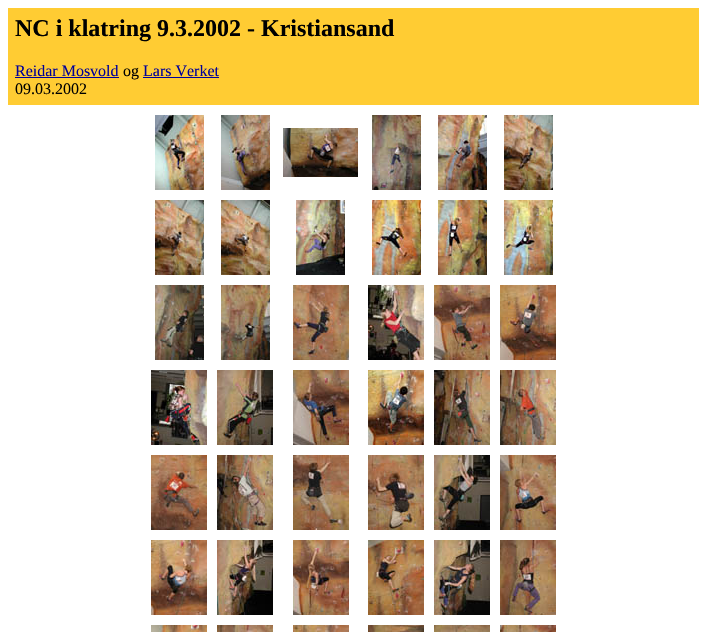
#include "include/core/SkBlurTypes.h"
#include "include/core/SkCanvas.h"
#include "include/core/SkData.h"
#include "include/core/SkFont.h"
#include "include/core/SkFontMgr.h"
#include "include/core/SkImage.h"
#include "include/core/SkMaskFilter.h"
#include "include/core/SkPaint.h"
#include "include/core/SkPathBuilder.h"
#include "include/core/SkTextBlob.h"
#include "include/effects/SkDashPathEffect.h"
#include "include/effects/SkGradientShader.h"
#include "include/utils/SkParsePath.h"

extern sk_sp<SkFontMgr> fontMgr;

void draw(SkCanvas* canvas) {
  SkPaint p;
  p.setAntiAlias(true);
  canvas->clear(SK_ColorWHITE);
  p.setColor(SkColorSetRGB(255, 204, 51));
  canvas->drawRect(SkRect::MakeLTRB(8, 8, 699, 105), p);
  p.setColor(SkColorSetRGB(0, 0, 153));
  canvas->drawRect(SkRect::MakeLTRB(15, 77, 119, 78), p);
  canvas->drawRect(SkRect::MakeLTRB(143, 77, 219, 78), p);
  canvas->drawImageRect(SkImages::DeferredFromEncodedData(SkData::MakeFromFileName("images/1.png")), SkRect::MakeLTRB(155, 115, 204, 190), SkSamplingOptions());
  canvas->drawImageRect(SkImages::DeferredFromEncodedData(SkData::MakeFromFileName("images/2.png")), SkRect::MakeLTRB(221, 115, 270, 190), SkSamplingOptions());
  canvas->drawImageRect(SkImages::DeferredFromEncodedData(SkData::MakeFromFileName("images/3.png")), SkRect::MakeLTRB(283, 128, 358, 177), SkSamplingOptions());
  canvas->drawImageRect(SkImages::DeferredFromEncodedData(SkData::MakeFromFileName("images/4.png")), SkRect::MakeLTRB(372, 115, 421, 190), SkSamplingOptions());
  canvas->drawImageRect(SkImages::DeferredFromEncodedData(SkData::MakeFromFileName("images/5.png")), SkRect::MakeLTRB(438, 115, 487, 190), SkSamplingOptions());
  canvas->drawImageRect(SkImages::DeferredFromEncodedData(SkData::MakeFromFileName("images/6.png")), SkRect::MakeLTRB(504, 115, 553, 190), SkSamplingOptions());
  canvas->drawImageRect(SkImages::DeferredFromEncodedData(SkData::MakeFromFileName("images/7.png")), SkRect::MakeLTRB(155, 200, 204, 275), SkSamplingOptions());
  canvas->drawImageRect(SkImages::DeferredFromEncodedData(SkData::MakeFromFileName("images/8.png")), SkRect::MakeLTRB(221, 200, 270, 275), SkSamplingOptions());
  canvas->drawImageRect(SkImages::DeferredFromEncodedData(SkData::MakeFromFileName("images/9.png")), SkRect::MakeLTRB(296, 200, 345, 275), SkSamplingOptions());
  canvas->drawImageRect(SkImages::DeferredFromEncodedData(SkData::MakeFromFileName("images/10.png")), SkRect::MakeLTRB(372, 200, 421, 275), SkSamplingOptions());
  canvas->drawImageRect(SkImages::DeferredFromEncodedData(SkData::MakeFromFileName("images/11.png")), SkRect::MakeLTRB(438, 200, 487, 275), SkSamplingOptions());
  canvas->drawImageRect(SkImages::DeferredFromEncodedData(SkData::MakeFromFileName("images/12.png")), SkRect::MakeLTRB(504, 200, 553, 275), SkSamplingOptions());
  canvas->drawImageRect(SkImages::DeferredFromEncodedData(SkData::MakeFromFileName("images/13.png")), SkRect::MakeLTRB(155, 285, 204, 360), SkSamplingOptions());
  canvas->drawImageRect(SkImages::DeferredFromEncodedData(SkData::MakeFromFileName("images/14.png")), SkRect::MakeLTRB(221, 285, 270, 360), SkSamplingOptions());
  canvas->drawImageRect(SkImages::DeferredFromEncodedData(SkData::MakeFromFileName("images/15.png")), SkRect::MakeLTRB(293, 285, 349, 360), SkSamplingOptions());
  canvas->drawImageRect(SkImages::DeferredFromEncodedData(SkData::MakeFromFileName("images/16.png")), SkRect::MakeLTRB(368, 285, 424, 360), SkSamplingOptions());
  canvas->drawImageRect(SkImages::DeferredFromEncodedData(SkData::MakeFromFileName("images/17.png")), SkRect::MakeLTRB(434, 285, 490, 360), SkSamplingOptions());
  canvas->drawImageRect(SkImages::DeferredFromEncodedData(SkData::MakeFromFileName("images/18.png")), SkRect::MakeLTRB(500, 285, 556, 360), SkSamplingOptions());
  canvas->drawImageRect(SkImages::DeferredFromEncodedData(SkData::MakeFromFileName("images/19.png")), SkRect::MakeLTRB(151, 370, 207, 445), SkSamplingOptions());
  canvas->drawImageRect(SkImages::DeferredFromEncodedData(SkData::MakeFromFileName("images/20.png")), SkRect::MakeLTRB(217, 370, 273, 445), SkSamplingOptions());
  canvas->drawImageRect(SkImages::DeferredFromEncodedData(SkData::MakeFromFileName("images/21.png")), SkRect::MakeLTRB(293, 370, 349, 445), SkSamplingOptions());
  canvas->drawImageRect(SkImages::DeferredFromEncodedData(SkData::MakeFromFileName("images/22.png")), SkRect::MakeLTRB(368, 370, 424, 445), SkSamplingOptions());
  canvas->drawImageRect(SkImages::DeferredFromEncodedData(SkData::MakeFromFileName("images/23.png")), SkRect::MakeLTRB(434, 370, 490, 445), SkSamplingOptions());
  canvas->drawImageRect(SkImages::DeferredFromEncodedData(SkData::MakeFromFileName("images/24.png")), SkRect::MakeLTRB(500, 370, 556, 445), SkSamplingOptions());
  canvas->drawImageRect(SkImages::DeferredFromEncodedData(SkData::MakeFromFileName("images/25.png")), SkRect::MakeLTRB(151, 455, 207, 530), SkSamplingOptions());
  canvas->drawImageRect(SkImages::DeferredFromEncodedData(SkData::MakeFromFileName("images/26.png")), SkRect::MakeLTRB(217, 455, 273, 530), SkSamplingOptions());
  canvas->drawImageRect(SkImages::DeferredFromEncodedData(SkData::MakeFromFileName("images/27.png")), SkRect::MakeLTRB(293, 455, 349, 530), SkSamplingOptions());
  canvas->drawImageRect(SkImages::DeferredFromEncodedData(SkData::MakeFromFileName("images/28.png")), SkRect::MakeLTRB(368, 455, 424, 530), SkSamplingOptions());
  canvas->drawImageRect(SkImages::DeferredFromEncodedData(SkData::MakeFromFileName("images/29.png")), SkRect::MakeLTRB(434, 455, 490, 530), SkSamplingOptions());
  canvas->drawImageRect(SkImages::DeferredFromEncodedData(SkData::MakeFromFileName("images/30.png")), SkRect::MakeLTRB(500, 455, 556, 530), SkSamplingOptions());
  canvas->drawImageRect(SkImages::DeferredFromEncodedData(SkData::MakeFromFileName("images/31.png")), SkRect::MakeLTRB(151, 540, 207, 615), SkSamplingOptions());
  canvas->drawImageRect(SkImages::DeferredFromEncodedData(SkData::MakeFromFileName("images/32.png")), SkRect::MakeLTRB(217, 540, 273, 615), SkSamplingOptions());
  canvas->drawImageRect(SkImages::DeferredFromEncodedData(SkData::MakeFromFileName("images/33.png")), SkRect::MakeLTRB(293, 540, 349, 615), SkSamplingOptions());
  canvas->drawImageRect(SkImages::DeferredFromEncodedData(SkData::MakeFromFileName("images/34.png")), SkRect::MakeLTRB(368, 540, 424, 615), SkSamplingOptions());
  canvas->drawImageRect(SkImages::DeferredFromEncodedData(SkData::MakeFromFileName("images/35.png")), SkRect::MakeLTRB(434, 540, 490, 615), SkSamplingOptions());
  canvas->drawImageRect(SkImages::DeferredFromEncodedData(SkData::MakeFromFileName("images/36.png")), SkRect::MakeLTRB(500, 540, 556, 615), SkSamplingOptions());
  canvas->drawImageRect(SkImages::DeferredFromEncodedData(SkData::MakeFromFileName("images/37.png")), SkRect::MakeLTRB(151, 625, 207, 632), SkSamplingOptions());
  canvas->drawImageRect(SkImages::DeferredFromEncodedData(SkData::MakeFromFileName("images/38.png")), SkRect::MakeLTRB(217, 625, 273, 632), SkSamplingOptions());
  canvas->drawImageRect(SkImages::DeferredFromEncodedData(SkData::MakeFromFileName("images/39.png")), SkRect::MakeLTRB(293, 625, 349, 632), SkSamplingOptions());
  canvas->drawImageRect(SkImages::DeferredFromEncodedData(SkData::MakeFromFileName("images/40.png")), SkRect::MakeLTRB(368, 625, 424, 632), SkSamplingOptions());
  canvas->drawImageRect(SkImages::DeferredFromEncodedData(SkData::MakeFromFileName("images/41.png")), SkRect::MakeLTRB(434, 625, 490, 632), SkSamplingOptions());
  canvas->drawImageRect(SkImages::DeferredFromEncodedData(SkData::MakeFromFileName("images/42.png")), SkRect::MakeLTRB(500, 625, 556, 632), SkSamplingOptions());
  SkFont font1(fontMgr->matchFamilyStyle("Liberation Serif", SkFontStyle::Bold()), 24);
  font1.setSubpixel(true);
  p.setColor(SK_ColorBLACK);
  canvas->drawString("NC i klatring 9.3.2002 - Kristiansand", 15, 36, font1, p);
  SkFont font2(fontMgr->matchFamilyStyle("Liberation Serif", SkFontStyle::Normal()), 16);
  font2.setSubpixel(true);
  p.setColor(SkColorSetRGB(0, 0, 153));
  canvas->drawString("Reidar Mosvold", 15, 76, font2, p);
  p.setColor(SK_ColorBLACK);
  canvas->drawString("og", 123, 76, font2, p);
  p.setColor(SkColorSetRGB(0, 0, 153));
  canvas->drawString("Lars Verket", 143, 76, font2, p);
  p.setColor(SK_ColorBLACK);
  canvas->drawString("09.03.2002", 15, 94, font2, p);
}
